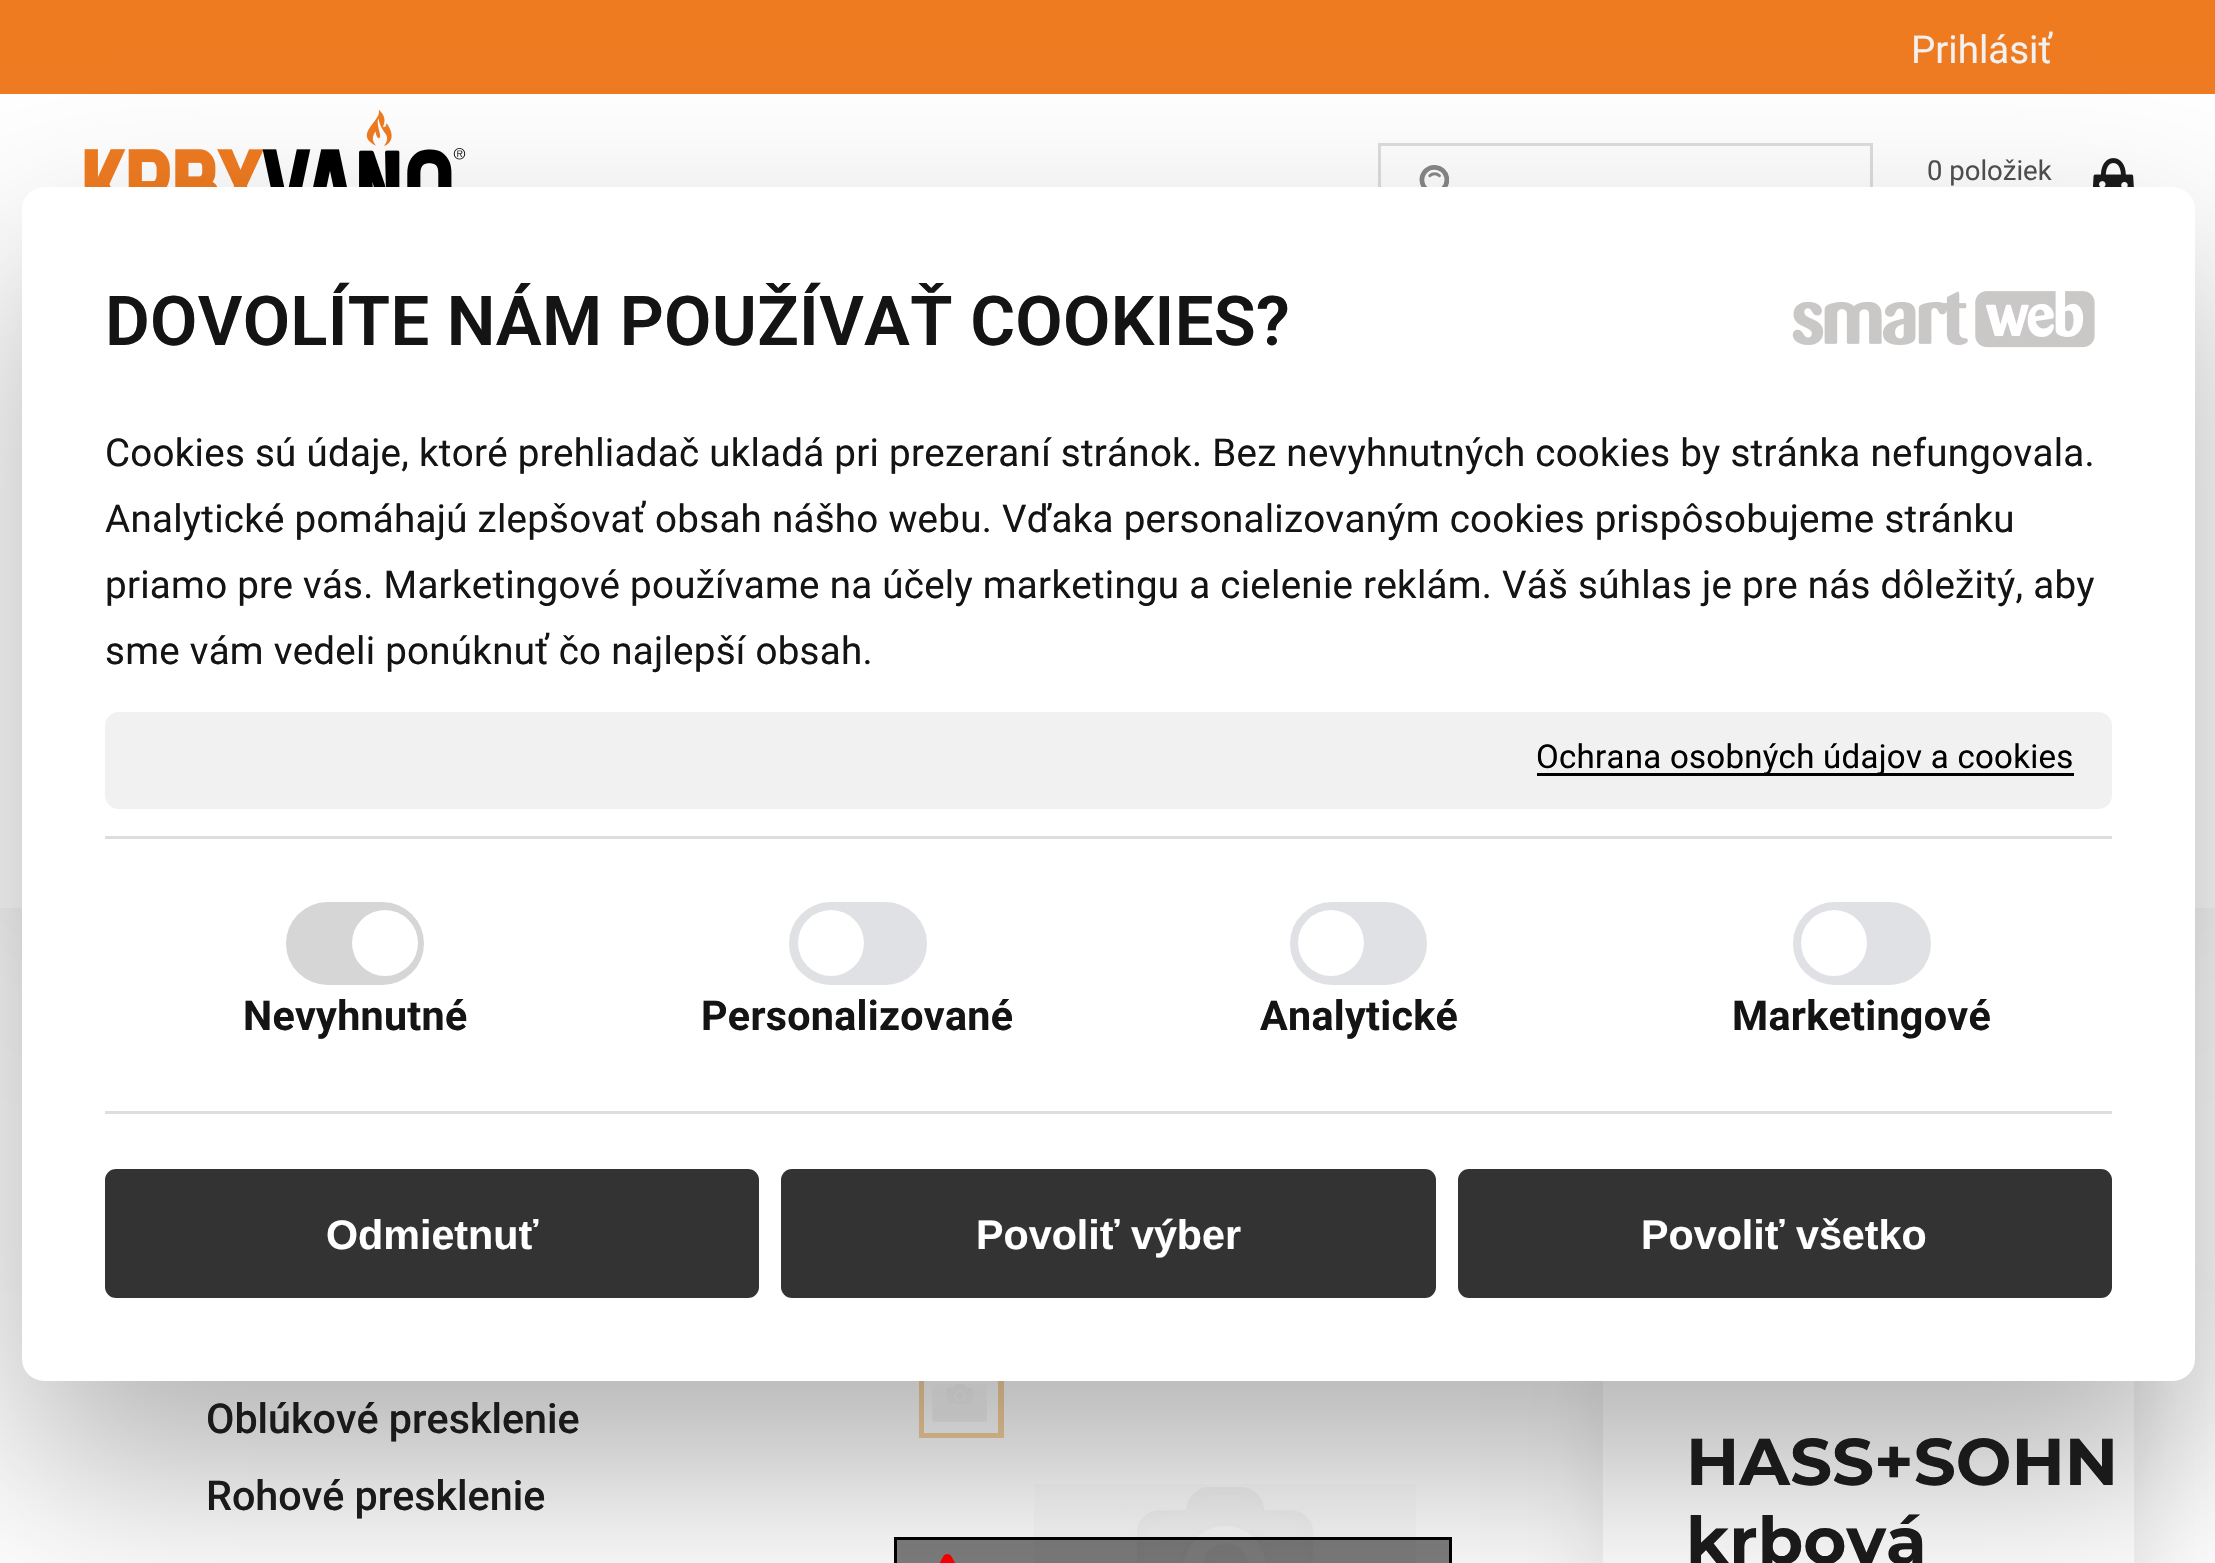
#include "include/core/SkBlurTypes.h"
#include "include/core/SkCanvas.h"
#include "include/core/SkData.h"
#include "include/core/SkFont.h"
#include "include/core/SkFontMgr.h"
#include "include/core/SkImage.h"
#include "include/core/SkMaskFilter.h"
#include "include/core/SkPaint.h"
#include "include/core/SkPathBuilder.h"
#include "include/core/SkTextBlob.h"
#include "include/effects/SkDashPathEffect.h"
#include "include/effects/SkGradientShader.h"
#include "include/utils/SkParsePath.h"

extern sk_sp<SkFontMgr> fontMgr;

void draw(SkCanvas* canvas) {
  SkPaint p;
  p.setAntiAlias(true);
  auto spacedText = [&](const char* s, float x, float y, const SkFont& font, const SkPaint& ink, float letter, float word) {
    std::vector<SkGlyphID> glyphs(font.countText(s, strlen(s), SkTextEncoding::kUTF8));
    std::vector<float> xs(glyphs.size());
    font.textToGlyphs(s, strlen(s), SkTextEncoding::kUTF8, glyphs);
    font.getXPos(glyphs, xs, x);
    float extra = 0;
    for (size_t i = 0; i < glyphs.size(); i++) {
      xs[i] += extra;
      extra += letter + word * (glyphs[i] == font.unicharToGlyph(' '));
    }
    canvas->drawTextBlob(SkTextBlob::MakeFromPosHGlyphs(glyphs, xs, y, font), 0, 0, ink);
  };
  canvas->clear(SK_ColorWHITE);
  p.setColor(SkColorSetARGB(26, 0, 0, 0));
  p.setMaskFilter(SkMaskFilter::MakeBlur(kNormal_SkBlurStyle, 137.5f));
  canvas->drawRect(SkRect::MakeLTRB(0, 0, 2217, 908), p);
  p.setMaskFilter(nullptr);
  p.setColor(SK_ColorWHITE);
  canvas->drawRect(SkRect::MakeLTRB(0, 94, 2215, 908), p);
  p.setColor(SkColorSetRGB(239, 123, 33));
  canvas->drawRect(SkRect::MakeLTRB(0, 0, 2215, 94), p);
  canvas->drawImageRect(SkImages::DeferredFromEncodedData(SkData::MakeFromFileName("images/1.png")), SkRect::MakeLTRB(84, 110, 466, 187), SkSamplingOptions());
  p.setStyle(SkPaint::kStroke_Style);
  p.setStrokeWidth(3);
  p.setColor(SkColorSetRGB(221, 221, 221));
  canvas->drawRect(SkRect::MakeLTRB(1379.5f, 144.5f, 1871.5f, 229.5f), p);
  canvas->drawImageRect(SkImages::DeferredFromEncodedData(SkData::MakeFromFileName("images/2.png")), SkRect::MakeLTRB(1419, 165, 1449, 187), SkSamplingOptions());
  canvas->drawImageRect(SkImages::DeferredFromEncodedData(SkData::MakeFromFileName("images/3.png")), SkRect::MakeLTRB(2092, 158, 2134, 187), SkSamplingOptions());
  p.setStrokeWidth(6);
  p.setColor(SkColorSetRGB(247, 210, 158));
  canvas->drawRect(SkRect::MakeLTRB(922, 1356, 1001, 1435), p);
  p.setStyle(SkPaint::kFill_Style);
  p.setColor(SK_ColorWHITE);
  canvas->drawRect(SkRect::MakeLTRB(924, 1381, 998, 1433), p);
  canvas->drawImageRect(SkImages::DeferredFromEncodedData(SkData::MakeFromFileName("images/6.png")), SkRect::MakeLTRB(932, 1384, 987, 1422), SkSamplingOptions());
  canvas->drawImageRect(SkImages::DeferredFromEncodedData(SkData::MakeFromFileName("images/7.png")), SkRect::MakeLTRB(1034, 1484, 1416, 1563), SkSamplingOptions());
  p.setColor(SkColorSetARGB(128, 0, 0, 0));
  canvas->drawRect(SkRect::MakeLTRB(895.5f, 1538.5f, 1450.5f, 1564.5f), p);
  p.setStyle(SkPaint::kStroke_Style);
  p.setStrokeWidth(3);
  p.setColor(SK_ColorBLACK);
  canvas->drawRect(SkRect::MakeLTRB(895.5f, 1538.5f, 1450.5f, 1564.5f), p);
  canvas->drawImageRect(SkImages::DeferredFromEncodedData(SkData::MakeFromFileName("images/8.png")), SkRect::MakeLTRB(939, 1554, 955, 1563), SkSamplingOptions());
  p.setStyle(SkPaint::kFill_Style);
  p.setColor(SkColorSetARGB(77, 0, 0, 0));
  p.setMaskFilter(SkMaskFilter::MakeBlur(kNormal_SkBlurStyle, 93.5f));
  canvas->drawRoundRect(SkRect::MakeLTRB(22, 275, 2195, 1469), 22, 22, p);
  p.setMaskFilter(nullptr);
  canvas->save();
  canvas->clipPath(SkPathBuilder(SkPathFillType::kEvenOdd).moveTo(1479, 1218).lineTo(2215, 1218).lineTo(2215, 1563).lineTo(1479, 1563).close().moveTo(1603, 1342).lineTo(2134, 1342).lineTo(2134, 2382).lineTo(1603, 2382).close().detach(), true);
  p.setColor(SkColorSetARGB(26, 0, 0, 0));
  p.setMaskFilter(SkMaskFilter::MakeBlur(kNormal_SkBlurStyle, 41));
  canvas->drawRect(SkRect::MakeLTRB(1603, 1342, 2134, 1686), p);
  p.setMaskFilter(nullptr);
  canvas->restore();
  p.setColor(SK_ColorWHITE);
  canvas->drawRoundRect(SkRect::MakeLTRB(22, 187, 2195, 1381), 22, 22, p);
  canvas->drawImageRect(SkImages::DeferredFromEncodedData(SkData::MakeFromFileName("images/4.png")), SkRect::MakeLTRB(1792, 291, 1968, 345), SkSamplingOptions());
  canvas->drawImageRect(SkImages::DeferredFromEncodedData(SkData::MakeFromFileName("images/5.png")), SkRect::MakeLTRB(1975, 291, 2095, 348), SkSamplingOptions());
  p.setColor(SkColorSetRGB(241, 241, 241));
  canvas->drawRoundRect(SkRect::MakeLTRB(105, 712, 2112, 809), 14, 14, p);
  p.setColor(SK_ColorBLACK);
  canvas->drawRect(SkRect::MakeLTRB(1537, 773, 2074, 776), p);
  p.setColor(SkColorSetRGB(221, 221, 221));
  canvas->drawRect(SkRect::MakeLTRB(105, 836, 2112, 839), p);
  canvas->drawRect(SkRect::MakeLTRB(105, 1111, 2112, 1114), p);
  p.setColor(SkColorSetRGB(214, 214, 214));
  canvas->drawRoundRect(SkRect::MakeLTRB(286, 902, 424, 985), 41.5f, 41.5f, p);
  p.setColor(SK_ColorWHITE);
  canvas->drawCircle(385, 943, 33, p);
  p.setColor(SkColorSetRGB(223, 225, 228));
  canvas->drawRoundRect(SkRect::MakeLTRB(789, 902, 927, 985), 41.5f, 41.5f, p);
  p.setColor(SK_ColorWHITE);
  canvas->drawCircle(831, 943, 33, p);
  p.setColor(SkColorSetRGB(223, 225, 228));
  canvas->drawRoundRect(SkRect::MakeLTRB(1290, 902, 1427, 985), 41.5f, 41.5f, p);
  p.setColor(SK_ColorWHITE);
  canvas->drawCircle(1331, 943, 33, p);
  p.setColor(SkColorSetRGB(223, 225, 228));
  canvas->drawRoundRect(SkRect::MakeLTRB(1793, 902, 1931, 985), 41.5f, 41.5f, p);
  p.setColor(SK_ColorWHITE);
  canvas->drawCircle(1834, 943, 33, p);
  p.setColor(SkColorSetRGB(51, 51, 51));
  canvas->drawRoundRect(SkRect::MakeLTRB(105, 1169, 759, 1298), 11, 11, p);
  canvas->drawRoundRect(SkRect::MakeLTRB(781, 1169, 1436, 1298), 11, 11, p);
  canvas->drawRoundRect(SkRect::MakeLTRB(1458, 1169, 2112, 1298), 11, 11, p);
  SkFont font1(fontMgr->matchFamilyStyle("Roboto", SkFontStyle::Normal()), 38.5f);
  font1.setSubpixel(true);
  p.setColor(SkColorSetRGB(241, 241, 241));
  canvas->drawString("Prihlásiť", 1911, 63, font1, p);
  SkFont font2(fontMgr->matchFamilyStyle("Roboto", SkFontStyle::Normal()), 27.5f);
  font2.setSubpixel(true);
  p.setColor(SkColorSetRGB(77, 77, 77));
  canvas->drawString("0 položiek", 1927, 180, font2, p);
  SkFont font3(fontMgr->matchFamilyStyle("Roboto", SkFontStyle(600, SkFontStyle::kNormal_Width, SkFontStyle::kUpright_Slant)), 68.75f);
  font3.setSubpixel(true);
  p.setColor(SkColorSetRGB(20, 20, 20));
  spacedText("DOVOLÍTE NÁM POUŽÍVAŤ COOKIES?", 105, 345, font3, p, 0.28f, 0);
  spacedText("Cookies sú údaje, ktoré prehliadač ukladá pri prezeraní stránok. Bez nevyhnutných cookies by stránka nefungovala.", 105, 466, font1, p, 0.28f, 0);
  spacedText("Analytické pomáhajú zlepšovať obsah nášho webu. Vďaka personalizovaným cookies prispôsobujeme stránku", 105, 532, font1, p, 0.28f, 0);
  spacedText("priamo pre vás. Marketingové používame na účely marketingu a cielenie reklám. Váš súhlas je pre nás dôležitý, aby", 105, 598, font1, p, 0.28f, 0);
  spacedText("sme vám vedeli ponúknuť čo najlepší obsah.", 105, 664, font1, p, 0.28f, 0);
  SkFont font4(fontMgr->matchFamilyStyle("Roboto", SkFontStyle::Normal()), 33);
  font4.setSubpixel(true);
  p.setColor(SK_ColorBLACK);
  spacedText("Ochrana osobných údajov a cookies", 1536, 768, font4, p, 0.28f, 0);
  SkFont font5(fontMgr->matchFamilyStyle("Roboto", SkFontStyle::Bold()), 41.25f);
  font5.setSubpixel(true);
  p.setColor(SkColorSetRGB(20, 20, 20));
  spacedText("Nevyhnutné", 243, 1030, font5, p, 0.28f, 0);
  spacedText("Personalizované", 701, 1030, font5, p, 0.28f, 0);
  spacedText("Analytické", 1260, 1030, font5, p, 0.28f, 0);
  spacedText("Marketingové", 1732, 1030, font5, p, 0.28f, 0);
  SkFont font6(fontMgr->matchFamilyStyle("Liberation Sans", SkFontStyle::Bold()), 41.25f);
  font6.setSubpixel(true);
  p.setColor(SK_ColorWHITE);
  canvas->drawString("Odmietnuť", 326, 1249, font6, p);
  canvas->drawString("Povoliť výber", 976, 1249, font6, p);
  canvas->drawString("Povoliť všetko", 1641, 1249, font6, p);
  SkFont font7(fontMgr->matchFamilyStyle("Roboto", SkFontStyle(500, SkFontStyle::kNormal_Width, SkFontStyle::kUpright_Slant)), 41.25f);
  font7.setSubpixel(true);
  p.setColor(SkColorSetRGB(26, 26, 26));
  canvas->drawString("Oblúkové presklenie", 206, 1433, font7, p);
  canvas->drawString("Rohové presklenie", 206, 1510, font7, p);
  SkFont font8(fontMgr->matchFamilyStyle("Montserrat", SkFontStyle::Bold()), 66);
  font8.setSubpixel(true);
  canvas->drawString("HASS+SOHN", 1686, 1485, font8, p);
  canvas->drawString("krbová", 1686, 1564, font8, p);
}
